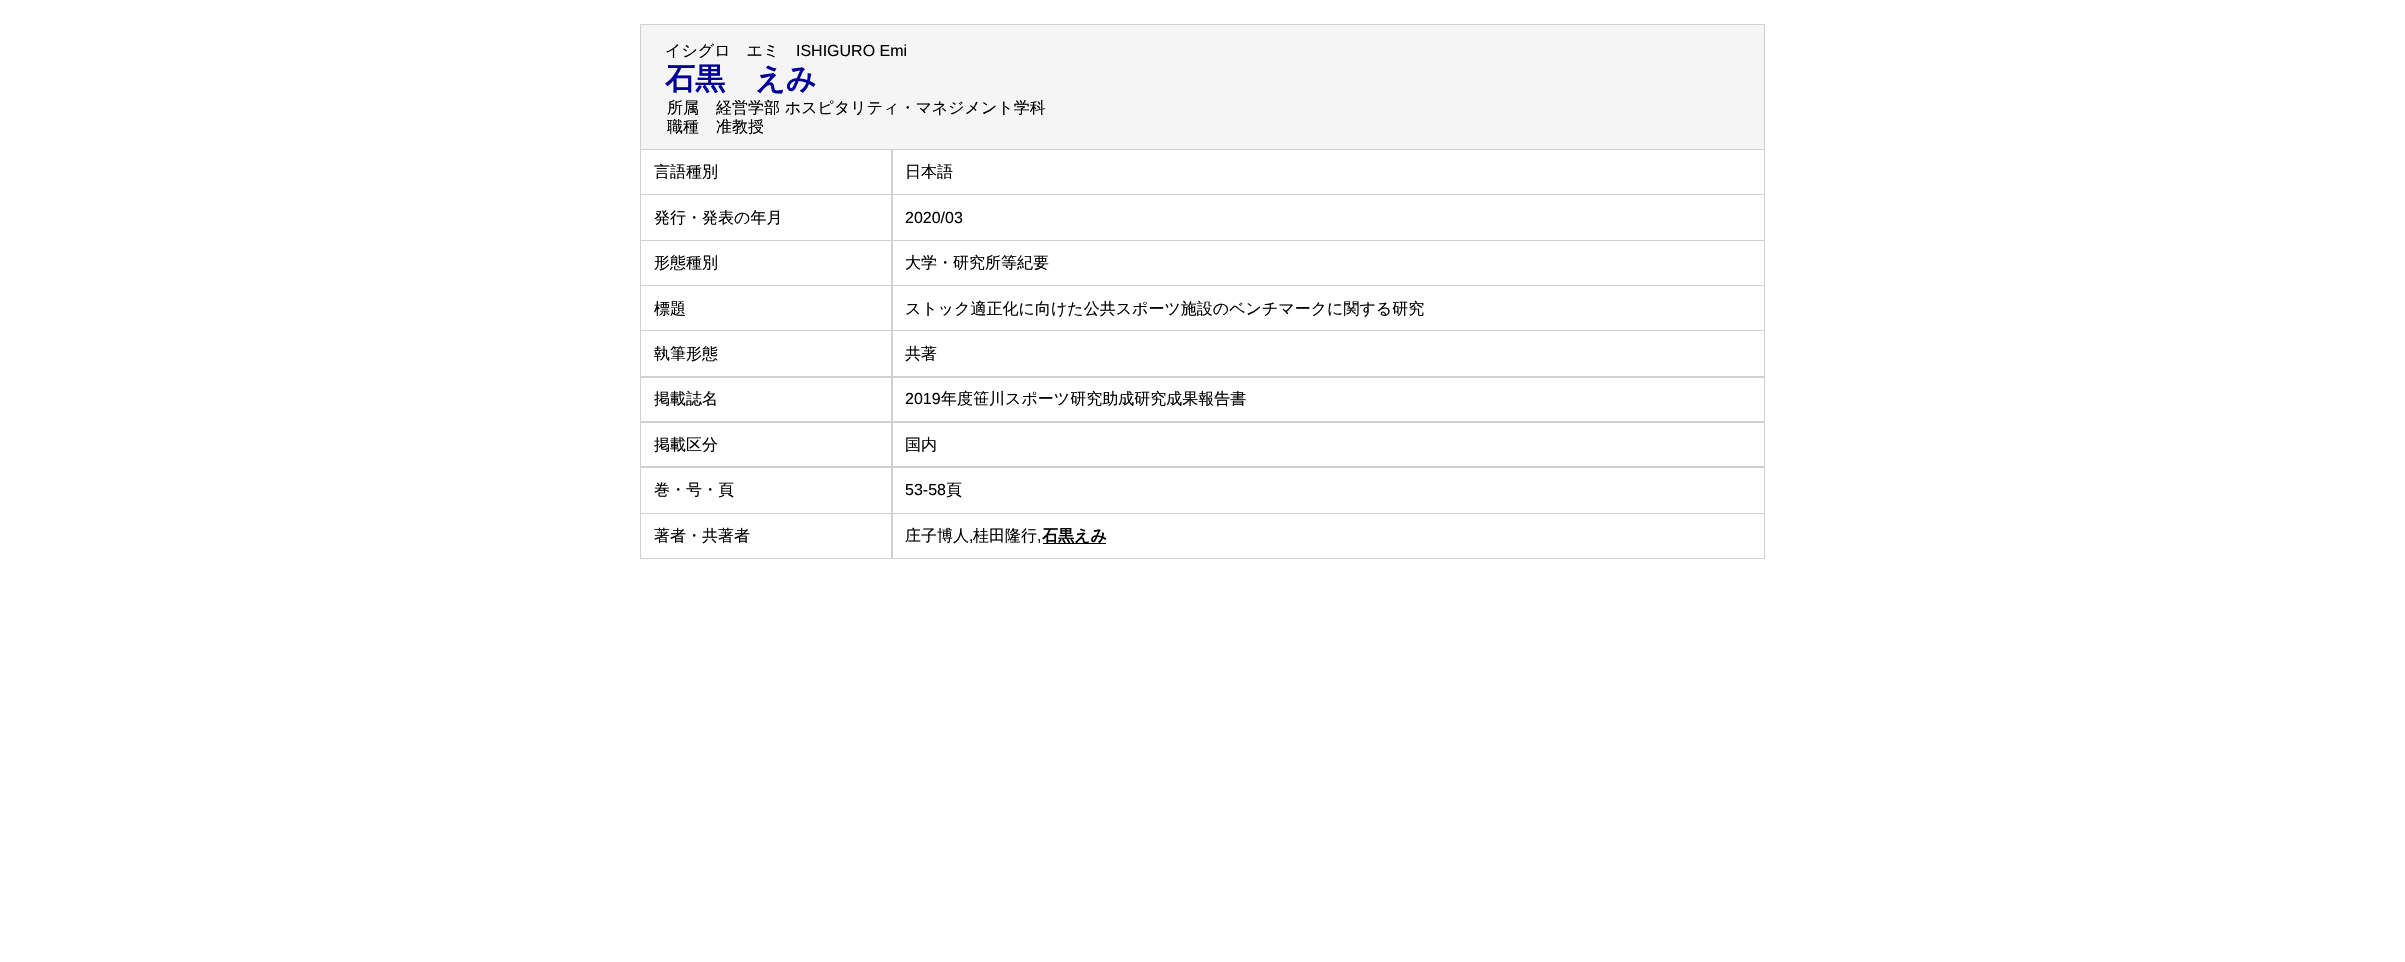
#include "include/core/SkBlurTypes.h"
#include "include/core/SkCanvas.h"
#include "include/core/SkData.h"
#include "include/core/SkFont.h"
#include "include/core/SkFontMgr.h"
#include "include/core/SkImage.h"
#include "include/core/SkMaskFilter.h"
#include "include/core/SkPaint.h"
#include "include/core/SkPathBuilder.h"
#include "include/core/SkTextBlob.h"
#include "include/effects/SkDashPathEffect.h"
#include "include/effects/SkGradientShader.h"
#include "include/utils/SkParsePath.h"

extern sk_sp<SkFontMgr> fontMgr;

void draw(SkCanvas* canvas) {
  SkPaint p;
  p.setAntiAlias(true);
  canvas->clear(SK_ColorWHITE);
  p.setColor(SkColorSetRGB(208, 208, 208));
  canvas->drawRect(SkRect::MakeLTRB(640, 24, 1765, 559), p);
  p.setColor(SkColorSetRGB(245, 245, 245));
  canvas->drawRect(SkRect::MakeLTRB(641, 25, 1764, 149), p);
  p.setColor(SK_ColorWHITE);
  canvas->drawRect(SkRect::MakeLTRB(641, 150, 891, 194), p);
  canvas->drawRect(SkRect::MakeLTRB(893, 150, 1764, 194), p);
  canvas->drawRect(SkRect::MakeLTRB(641, 195, 891, 240), p);
  canvas->drawRect(SkRect::MakeLTRB(893, 195, 1764, 240), p);
  canvas->drawRect(SkRect::MakeLTRB(641, 241, 891, 285), p);
  canvas->drawRect(SkRect::MakeLTRB(893, 241, 1764, 285), p);
  canvas->drawRect(SkRect::MakeLTRB(641, 286, 891, 330), p);
  canvas->drawRect(SkRect::MakeLTRB(893, 286, 1764, 330), p);
  canvas->drawRect(SkRect::MakeLTRB(641, 331, 891, 376), p);
  canvas->drawRect(SkRect::MakeLTRB(893, 331, 1764, 376), p);
  canvas->drawRect(SkRect::MakeLTRB(641, 378, 891, 421), p);
  canvas->drawRect(SkRect::MakeLTRB(893, 378, 1764, 421), p);
  canvas->drawRect(SkRect::MakeLTRB(641, 423, 891, 466), p);
  canvas->drawRect(SkRect::MakeLTRB(893, 423, 1764, 466), p);
  canvas->drawRect(SkRect::MakeLTRB(641, 468, 891, 513), p);
  canvas->drawRect(SkRect::MakeLTRB(893, 468, 1764, 513), p);
  canvas->drawRect(SkRect::MakeLTRB(641, 514, 891, 558), p);
  canvas->drawRect(SkRect::MakeLTRB(893, 514, 1764, 558), p);
  p.setColor(SK_ColorBLACK);
  canvas->drawRect(SkRect::MakeLTRB(1043, 543, 1106, 544), p);
  SkFont font1(fontMgr->matchFamilyStyle("WenQuanYi Zen Hei", SkFontStyle(500, SkFontStyle::kNormal_Width, SkFontStyle::kUpright_Slant)), 16);
  font1.setSubpixel(true);
  canvas->drawString("イシグロ　エミ", 665, 56, font1, p);
  SkFont font2(fontMgr->matchFamilyStyle("Liberation Sans", SkFontStyle::Normal()), 16);
  font2.setSubpixel(true);
  canvas->drawString("ISHIGURO Emi", 796, 56, font2, p);
  SkFont font3(fontMgr->matchFamilyStyle("WenQuanYi Zen Hei", SkFontStyle::Bold()), 30);
  font3.setSubpixel(true);
  p.setColor(SkColorSetRGB(0, 0, 153));
  canvas->drawString("石黒　えみ", 665, 89, font3, p);
  p.setColor(SK_ColorBLACK);
  canvas->drawString("所属", 667, 113, font1, p);
  canvas->drawString("経営学部 ホスピタリティ・マネジメント学科", 716, 113, font1, p);
  canvas->drawString("職種", 667, 132, font1, p);
  canvas->drawString("准教授", 716, 132, font1, p);
  canvas->drawString("言語種別", 654, 177, font1, p);
  canvas->drawString("日本語", 905, 177, font1, p);
  canvas->drawString("発行・発表の年月", 654, 223, font1, p);
  canvas->drawString("2020/03", 905, 223, font2, p);
  canvas->drawString("形態種別", 654, 268, font1, p);
  canvas->drawString("大学・研究所等紀要", 905, 268, font1, p);
  canvas->drawString("標題", 654, 314, font1, p);
  canvas->drawString("ストック適正化に向けた公共スポーツ施設のベンチマークに関する研究", 905, 314, font1, p);
  canvas->drawString("執筆形態", 654, 359, font1, p);
  canvas->drawString("共著", 905, 359, font1, p);
  canvas->drawString("掲載誌名", 654, 404, font1, p);
  canvas->drawString("2019", 905, 404, font2, p);
  canvas->drawString("年度笹川スポーツ研究助成研究成果報告書", 941, 404, font1, p);
  canvas->drawString("掲載区分", 654, 450, font1, p);
  canvas->drawString("国内", 905, 450, font1, p);
  canvas->drawString("巻・号・頁", 654, 495, font1, p);
  canvas->drawString("53-58", 905, 495, font2, p);
  canvas->drawString("頁", 946, 495, font1, p);
  canvas->drawString("著者・共著者", 654, 541, font1, p);
  canvas->drawString("庄子博人", 905, 541, font1, p);
  canvas->drawString(",", 969, 541, font2, p);
  canvas->drawString("桂田隆行", 973, 541, font1, p);
  canvas->drawString(",", 1037, 541, font2, p);
  SkFont font4(fontMgr->matchFamilyStyle("WenQuanYi Zen Hei", SkFontStyle::Bold()), 16);
  font4.setSubpixel(true);
  canvas->drawString("石黒えみ", 1042, 541, font4, p);
}
